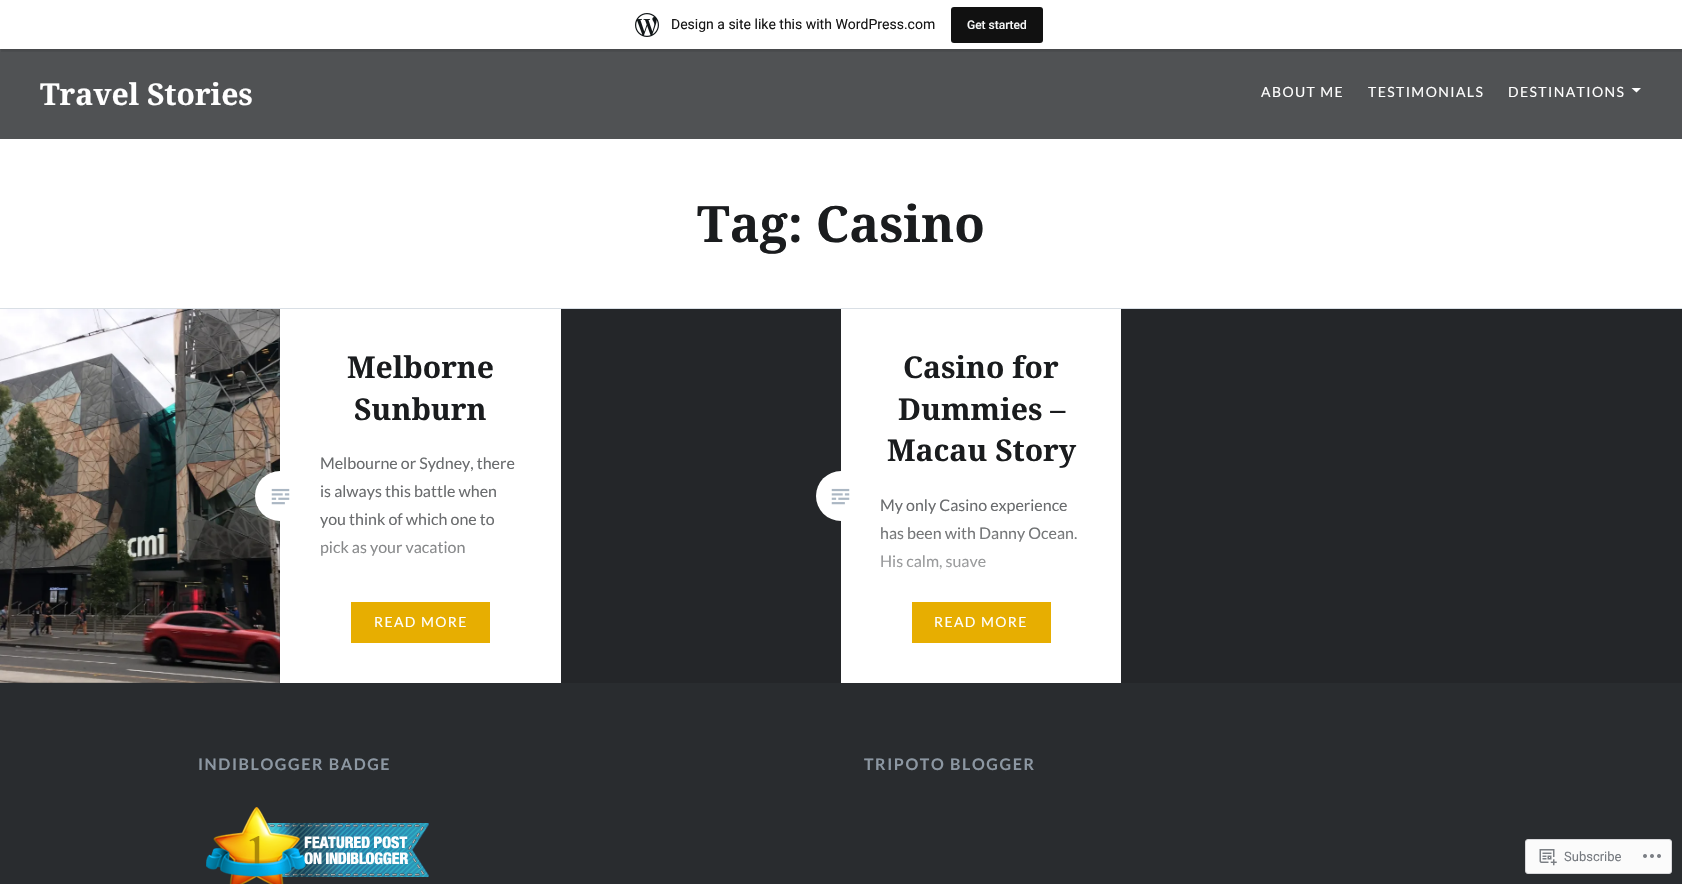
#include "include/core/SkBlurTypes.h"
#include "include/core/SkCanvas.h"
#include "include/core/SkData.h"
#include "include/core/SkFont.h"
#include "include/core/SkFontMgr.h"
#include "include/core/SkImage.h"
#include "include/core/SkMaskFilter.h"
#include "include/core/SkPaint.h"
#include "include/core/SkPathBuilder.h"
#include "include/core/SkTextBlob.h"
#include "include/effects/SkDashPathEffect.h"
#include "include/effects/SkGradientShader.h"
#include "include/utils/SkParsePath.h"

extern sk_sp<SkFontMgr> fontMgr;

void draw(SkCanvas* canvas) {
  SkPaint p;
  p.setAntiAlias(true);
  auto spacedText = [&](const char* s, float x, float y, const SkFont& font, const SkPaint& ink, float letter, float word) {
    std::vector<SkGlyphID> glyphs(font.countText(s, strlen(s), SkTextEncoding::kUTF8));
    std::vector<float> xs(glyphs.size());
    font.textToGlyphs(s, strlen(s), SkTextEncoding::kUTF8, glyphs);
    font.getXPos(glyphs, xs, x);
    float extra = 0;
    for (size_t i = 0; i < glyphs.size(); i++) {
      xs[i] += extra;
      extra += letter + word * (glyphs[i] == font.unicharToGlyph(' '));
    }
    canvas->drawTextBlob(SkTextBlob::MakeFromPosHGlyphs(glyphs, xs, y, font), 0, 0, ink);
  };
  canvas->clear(SK_ColorWHITE);
  p.setColor(SkColorSetRGB(80, 82, 84));
  canvas->drawRect(SkRect::MakeLTRB(0, 49, 1682, 139), p);
  p.setColor(SkColorSetARGB(13, 0, 0, 0));
  p.setMaskFilter(SkMaskFilter::MakeBlur(kNormal_SkBlurStyle, 1));
  canvas->drawRect(SkRect::MakeLTRB(0, 1, 1682, 50), p);
  p.setMaskFilter(nullptr);
  p.setColor(SkColorSetARGB(20, 0, 0, 0));
  canvas->drawPath(SkPathBuilder().moveTo(1, 49).lineTo(1, 52).lineTo(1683, 52).lineTo(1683, 3).lineTo(1682, 3).lineTo(1682, 49).close().detach(), p);
  p.setColor(SK_ColorWHITE);
  canvas->drawRect(SkRect::MakeLTRB(0, 0, 1682, 49), p);
  canvas->drawImageRect(SkImages::DeferredFromEncodedData(SkData::MakeFromFileName("images/1.png")), SkRect::MakeLTRB(635, 13, 659, 37), SkSamplingOptions());
  p.setColor(SkColorSetRGB(17, 17, 17));
  canvas->drawRoundRect(SkRect::MakeLTRB(951, 7, 1043, 43), 3, 3, p);
  p.setColor(SK_ColorWHITE);
  canvas->drawPath(SkPathBuilder().moveTo(1631.5f, 88).lineTo(1641, 88).lineTo(1636.5f, 92.5f).close().detach(), p);
  p.setColor(SkColorSetRGB(36, 38, 41));
  canvas->drawRect(SkRect::MakeLTRB(0, 309, 1682, 683), p);
  p.setColor(SkColorSetRGB(217, 223, 229));
  canvas->drawRect(SkRect::MakeLTRB(0, 308, 1682, 309), p);
  canvas->drawImageRect(SkImages::DeferredFromEncodedData(SkData::MakeFromFileName("images/2.png")), SkRect::MakeLTRB(0, 309, 280, 683), SkSamplingOptions());
  p.setColor(SK_ColorWHITE);
  canvas->drawRect(SkRect::MakeLTRB(280, 309, 561, 683), p);
  canvas->drawCircle(280, 496, 25, p);
  p.setColor(SkColorSetRGB(231, 174, 1));
  canvas->drawRect(SkRect::MakeLTRB(351, 602, 490, 643), p);
  canvas->drawImageRect(SkImages::DeferredFromEncodedData(SkData::MakeFromFileName("images/3.png")), SkRect::MakeLTRB(271, 488, 290, 505), SkSamplingOptions());
  p.setColor(SK_ColorWHITE);
  canvas->drawRect(SkRect::MakeLTRB(841, 309, 1121, 683), p);
  canvas->drawCircle(841, 496, 25, p);
  p.setColor(SkColorSetRGB(231, 174, 1));
  canvas->drawRect(SkRect::MakeLTRB(912, 602, 1051, 643), p);
  canvas->drawImageRect(SkImages::DeferredFromEncodedData(SkData::MakeFromFileName("images/3.png")), SkRect::MakeLTRB(831, 488, 850, 505), SkSamplingOptions());
  p.setColor(SkColorSetRGB(41, 44, 47));
  canvas->drawRect(SkRect::MakeLTRB(0, 683, 1682, 884), p);
  canvas->drawImageRect(SkImages::DeferredFromEncodedData(SkData::MakeFromFileName("images/4.png")), SkRect::MakeLTRB(206, 807, 429, 884), SkSamplingOptions());
  p.setColor(SkColorSetRGB(251, 251, 251));
  canvas->drawRoundRect(SkRect::MakeLTRB(1525.5f, 839.5f, 1671.5f, 873.5f), 2.5f, 2.5f, p);
  p.setStyle(SkPaint::kStroke_Style);
  p.setStrokeWidth(1);
  p.setColor(SkColorSetRGB(216, 216, 219));
  canvas->drawRoundRect(SkRect::MakeLTRB(1525.5f, 839.5f, 1671.5f, 873.5f), 2.5f, 2.5f, p);
  canvas->drawImageRect(SkImages::DeferredFromEncodedData(SkData::MakeFromFileName("images/5.png")), SkRect::MakeLTRB(1539, 849, 1557, 866), SkSamplingOptions());
  canvas->drawImageRect(SkImages::DeferredFromEncodedData(SkData::MakeFromFileName("images/6.png")), SkRect::MakeLTRB(1643, 854, 1661, 858), SkSamplingOptions());
  SkFont font1(fontMgr->matchFamilyStyle("Roboto", SkFontStyle::Normal()), 14);
  font1.setSubpixel(true);
  p.setStyle(SkPaint::kFill_Style);
  p.setColor(SkColorSetRGB(23, 23, 23));
  canvas->drawString("Design a site like this with WordPress.com", 671, 29, font1, p);
  SkFont font2(fontMgr->matchFamilyStyle("Roboto", SkFontStyle(500, SkFontStyle::kNormal_Width, SkFontStyle::kUpright_Slant)), 12);
  font2.setSubpixel(true);
  p.setColor(SkColorSetRGB(246, 247, 247));
  canvas->drawString("Get started", 967, 29, font2, p);
  SkFont font3(fontMgr->matchFamilyStyle("Noto Serif", SkFontStyle::Bold()), 30);
  font3.setSubpixel(true);
  p.setColor(SK_ColorWHITE);
  canvas->drawString("Travel Stories", 40, 105, font3, p);
  SkFont font4(fontMgr->matchFamilyStyle("Lato", SkFontStyle::Normal()), 14);
  font4.setSubpixel(true);
  spacedText("ABOUT ME", 1261, 97, font4, p, 1.4f, 0);
  spacedText("TESTIMONIALS", 1368, 97, font4, p, 1.4f, 0);
  spacedText("DESTINATIONS", 1508, 97, font4, p, 1.4f, 0);
  SkFont font5(fontMgr->matchFamilyStyle("Noto Serif", SkFontStyle::Bold()), 50);
  font5.setSubpixel(true);
  p.setColor(SkColorSetRGB(26, 28, 30));
  canvas->drawString("Tag: Casino", 697, 242, font5, p);
  canvas->drawString("Melborne", 347, 378, font3, p);
  canvas->drawString("Sunburn", 354, 420, font3, p);
  SkFont font6(fontMgr->matchFamilyStyle("Lato", SkFontStyle::Normal()), 16);
  font6.setSubpixel(true);
  p.setColor(SkColorSetRGB(106, 108, 110));
  canvas->drawString("Melbourne or Sydney, there", 320, 469, font6, p);
  canvas->drawString("is always this battle when", 320, 497, font6, p);
  canvas->drawString("you think of which one to", 320, 525, font6, p);
  canvas->drawString("pick as your vacation", 320, 553, font6, p);
  p.setColor(SK_ColorWHITE);
  spacedText("READ MORE", 374, 627, font4, p, 1.4f, 0);
  {
    const SkColor colors[] = {SkColorSetARGB(0, 255, 255, 255), SK_ColorWHITE};
    const float stops[] = {0, 1};
    const SkPoint ends[] = {{421, 525}, {421, 643}};
    p.setShader(SkGradientShader::MakeLinear(ends, colors, stops, 2, SkTileMode::kClamp));
    p.setAlpha(255);
  }
  canvas->drawRect(SkRect::MakeLTRB(320, 541, 464, 556), p);
  p.setShader(nullptr);
  p.setColor(SkColorSetRGB(26, 28, 30));
  canvas->drawString("Casino for", 903, 378, font3, p);
  canvas->drawString("Dummies –", 898, 420, font3, p);
  canvas->drawString("Macau Story", 887, 461, font3, p);
  p.setColor(SkColorSetRGB(106, 108, 110));
  canvas->drawString("My only Casino experience", 880, 511, font6, p);
  canvas->drawString("has been with Danny Ocean.", 880, 539, font6, p);
  canvas->drawString("His calm, suave", 880, 567, font6, p);
  p.setColor(SK_ColorWHITE);
  spacedText("READ MORE", 934, 627, font4, p, 1.4f, 0);
  {
    const SkColor colors[] = {SkColorSetARGB(0, 255, 255, 255), SK_ColorWHITE};
    const float stops[] = {0, 1};
    const SkPoint ends[] = {{981, 525}, {981, 643}};
    p.setShader(SkGradientShader::MakeLinear(ends, colors, stops, 2, SkTileMode::kClamp));
    p.setAlpha(255);
  }
  canvas->drawRect(SkRect::MakeLTRB(881, 528, 1077, 569), p);
  {
    const SkColor colors[] = {SkColorSetARGB(0, 255, 255, 255), SK_ColorWHITE};
    const float stops[] = {0, 1};
    const SkPoint ends[] = {{981, 566}, {981, 588}};
    p.setShader(SkGradientShader::MakeLinear(ends, colors, stops, 2, SkTileMode::kClamp));
    p.setAlpha(255);
  }
  canvas->drawRect(SkRect::MakeLTRB(940, 567, 942, 569), p);
  SkFont font7(fontMgr->matchFamilyStyle("Lato", SkFontStyle::Bold()), 16);
  font7.setSubpixel(true);
  p.setShader(nullptr);
  p.setColor(SkColorSetRGB(140, 151, 162));
  spacedText("INDIBLOGGER BADGE", 198, 770, font7, p, 1.6f, 0);
  spacedText("TRIPOTO BLOGGER", 864, 770, font7, p, 1.6f, 0);
  SkFont font8(fontMgr->matchFamilyStyle("Roboto", SkFontStyle::Normal()), 13);
  font8.setSubpixel(true);
  p.setColor(SkColorSetRGB(118, 122, 128));
  canvas->drawString("Subscribe", 1564, 861, font8, p);
}
